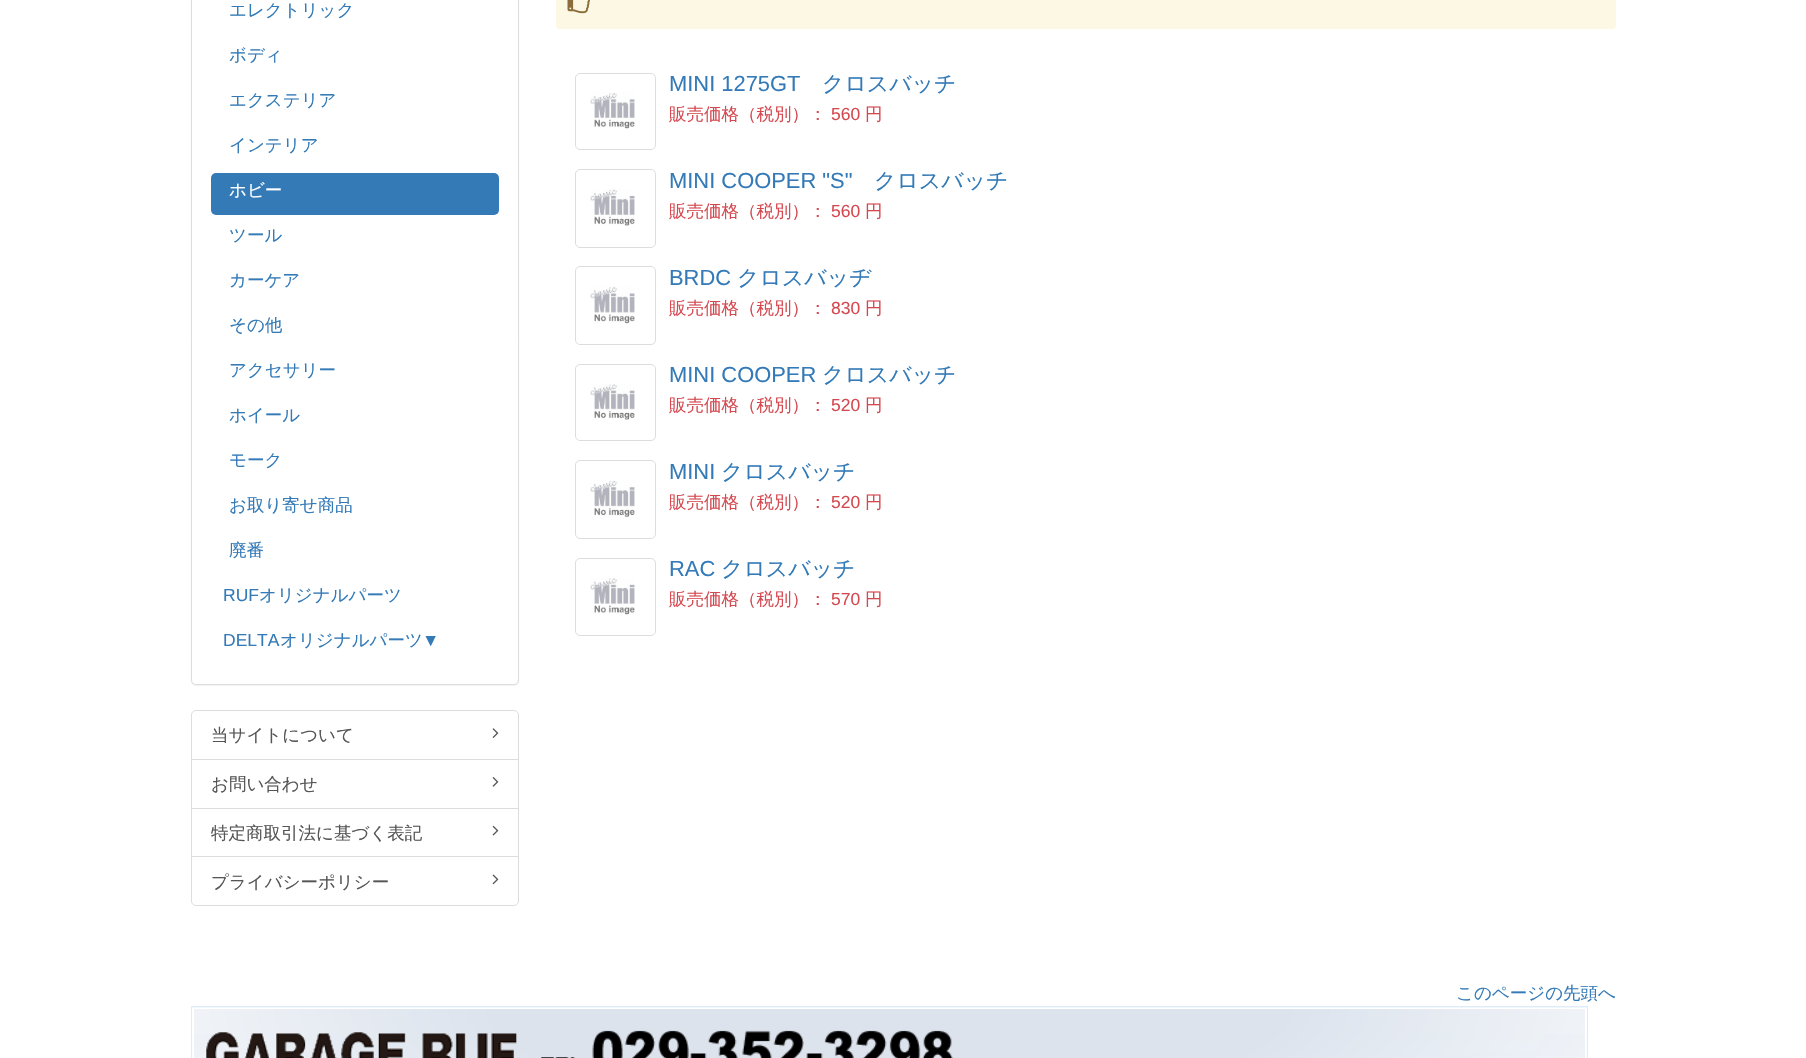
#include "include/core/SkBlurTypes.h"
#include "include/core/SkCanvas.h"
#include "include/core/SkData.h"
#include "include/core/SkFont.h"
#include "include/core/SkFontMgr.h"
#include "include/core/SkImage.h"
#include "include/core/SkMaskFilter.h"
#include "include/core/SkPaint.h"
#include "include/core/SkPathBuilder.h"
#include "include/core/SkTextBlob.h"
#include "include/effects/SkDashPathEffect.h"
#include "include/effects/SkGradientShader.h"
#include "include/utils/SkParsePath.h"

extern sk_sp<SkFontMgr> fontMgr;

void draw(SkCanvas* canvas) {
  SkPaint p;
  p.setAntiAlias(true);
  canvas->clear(SK_ColorWHITE);
  p.setColor(SkColorSetARGB(13, 0, 0, 0));
  p.setMaskFilter(SkMaskFilter::MakeBlur(kNormal_SkBlurStyle, 0.5f));
  canvas->drawRoundRect(SkRect::MakeLTRB(191, -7, 519, 686), 5, 5, p);
  p.setMaskFilter(nullptr);
  p.setColor(SK_ColorWHITE);
  canvas->drawRoundRect(SkRect::MakeLTRB(191.5f, -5.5f, 518.5f, 684.5f), 4.5f, 4.5f, p);
  p.setStyle(SkPaint::kStroke_Style);
  p.setStrokeWidth(1);
  p.setColor(SkColorSetRGB(221, 221, 221));
  canvas->drawRoundRect(SkRect::MakeLTRB(191.5f, -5.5f, 518.5f, 684.5f), 4.5f, 4.5f, p);
  p.setStyle(SkPaint::kFill_Style);
  p.setColor(SkColorSetRGB(51, 122, 183));
  canvas->drawRoundRect(SkRect::MakeLTRB(211, 173, 499, 215), 5, 5, p);
  p.setStyle(SkPaint::kStroke_Style);
  p.setColor(SkColorSetRGB(221, 221, 221));
  canvas->drawPath(SkPathBuilder().moveTo(196, 710.5f).lineTo(514, 710.5f).cubicTo(516.5f, 710.5f, 518.5f, 712.5f, 518.5f, 715).lineTo(518.5f, 759.5f).lineTo(191.5f, 759.5f).lineTo(191.5f, 715).cubicTo(191.5f, 712.5f, 193.5f, 710.5f, 196, 710.5f).close().detach(), p);
  canvas->drawImageRect(SkImages::DeferredFromEncodedData(SkData::MakeFromFileName("images/1.png")), SkRect::MakeLTRB(492, 728, 499, 738), SkSamplingOptions());
  canvas->drawRect(SkRect::MakeLTRB(191.5f, 759.5f, 518.5f, 808.5f), p);
  canvas->drawImageRect(SkImages::DeferredFromEncodedData(SkData::MakeFromFileName("images/2.png")), SkRect::MakeLTRB(492, 777, 499, 787), SkSamplingOptions());
  canvas->drawRect(SkRect::MakeLTRB(191.5f, 808.5f, 518.5f, 857.5f), p);
  canvas->drawImageRect(SkImages::DeferredFromEncodedData(SkData::MakeFromFileName("images/3.png")), SkRect::MakeLTRB(492, 825, 499, 836), SkSamplingOptions());
  p.setStyle(SkPaint::kFill_Style);
  p.setColor(SK_ColorWHITE);
  canvas->drawPath(SkPathBuilder().moveTo(191.5f, 856.5f).lineTo(518.5f, 856.5f).lineTo(518.5f, 901).cubicTo(518.5f, 903.5f, 516.5f, 905.5f, 514, 905.5f).lineTo(196, 905.5f).cubicTo(193.5f, 905.5f, 191.5f, 903.5f, 191.5f, 901).close().detach(), p);
  p.setStyle(SkPaint::kStroke_Style);
  p.setColor(SkColorSetRGB(221, 221, 221));
  canvas->drawPath(SkPathBuilder().moveTo(191.5f, 856.5f).lineTo(518.5f, 856.5f).lineTo(518.5f, 901).cubicTo(518.5f, 903.5f, 516.5f, 905.5f, 514, 905.5f).lineTo(196, 905.5f).cubicTo(193.5f, 905.5f, 191.5f, 903.5f, 191.5f, 901).close().detach(), p);
  canvas->drawImageRect(SkImages::DeferredFromEncodedData(SkData::MakeFromFileName("images/4.png")), SkRect::MakeLTRB(492, 874, 499, 885), SkSamplingOptions());
  p.setStyle(SkPaint::kFill_Style);
  p.setColor(SkColorSetRGB(252, 248, 227));
  canvas->drawRoundRect(SkRect::MakeLTRB(556, -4, 1616, 29), 4, 4, p);
  canvas->drawImageRect(SkImages::DeferredFromEncodedData(SkData::MakeFromFileName("images/5.png")), SkRect::MakeLTRB(567, 0, 590, 14), SkSamplingOptions());
  p.setStyle(SkPaint::kStroke_Style);
  p.setColor(SkColorSetRGB(221, 221, 221));
  canvas->drawRoundRect(SkRect::MakeLTRB(575.5f, 73.5f, 655.5f, 149.5f), 4.5f, 4.5f, p);
  canvas->drawImageRect(SkImages::DeferredFromEncodedData(SkData::MakeFromFileName("images/6.png")), SkRect::MakeLTRB(590, 92, 635, 129), SkSamplingOptions());
  canvas->drawRoundRect(SkRect::MakeLTRB(575.5f, 169.5f, 655.5f, 247.5f), 4.5f, 4.5f, p);
  canvas->drawImageRect(SkImages::DeferredFromEncodedData(SkData::MakeFromFileName("images/7.png")), SkRect::MakeLTRB(590, 189, 635, 226), SkSamplingOptions());
  canvas->drawRoundRect(SkRect::MakeLTRB(575.5f, 266.5f, 655.5f, 344.5f), 4.5f, 4.5f, p);
  canvas->drawImageRect(SkImages::DeferredFromEncodedData(SkData::MakeFromFileName("images/8.png")), SkRect::MakeLTRB(590, 286, 635, 324), SkSamplingOptions());
  canvas->drawRoundRect(SkRect::MakeLTRB(575.5f, 364.5f, 655.5f, 440.5f), 4.5f, 4.5f, p);
  canvas->drawImageRect(SkImages::DeferredFromEncodedData(SkData::MakeFromFileName("images/9.png")), SkRect::MakeLTRB(590, 384, 635, 420), SkSamplingOptions());
  canvas->drawRoundRect(SkRect::MakeLTRB(575.5f, 460.5f, 655.5f, 538.5f), 4.5f, 4.5f, p);
  canvas->drawImageRect(SkImages::DeferredFromEncodedData(SkData::MakeFromFileName("images/10.png")), SkRect::MakeLTRB(590, 480, 635, 518), SkSamplingOptions());
  canvas->drawRoundRect(SkRect::MakeLTRB(575.5f, 558.5f, 655.5f, 635.5f), 4.5f, 4.5f, p);
  canvas->drawImageRect(SkImages::DeferredFromEncodedData(SkData::MakeFromFileName("images/11.png")), SkRect::MakeLTRB(590, 578, 635, 615), SkSamplingOptions());
  p.setStyle(SkPaint::kFill_Style);
  {
    const SkColor colors[] = {SK_ColorWHITE, SkColorSetRGB(238, 249, 255)};
    const float stops[] = {0, 1};
    const SkPoint ends[] = {{889, 827}, {889, 1008}};
    p.setShader(SkGradientShader::MakeLinear(ends, colors, stops, 2, SkTileMode::kClamp));
    p.setAlpha(255);
  }
  canvas->drawRect(SkRect::MakeLTRB(191, 1007, 1588, 1008), p);
  {
    const SkColor colors[] = {SK_ColorWHITE, SkColorSetRGB(238, 249, 255)};
    const float stops[] = {0, 1};
    const SkPoint ends[] = {{889, 1007}, {889, 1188}};
    p.setShader(SkGradientShader::MakeLinear(ends, colors, stops, 2, SkTileMode::kClamp));
    p.setAlpha(255);
  }
  canvas->drawRect(SkRect::MakeLTRB(192, 1034, 1587, 1058), p);
  p.setStyle(SkPaint::kStroke_Style);
  p.setShader(nullptr);
  p.setColor(SkColorSetRGB(226, 235, 244));
  canvas->drawRect(SkRect::MakeLTRB(191.5f, 1006.5f, 1587.5f, 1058.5f), p);
  p.setStyle(SkPaint::kFill_Style);
  {
    const SkColor colors[] = {SkColorSetRGB(220, 227, 237), SkColorSetARGB(0, 220, 227, 237)};
    const float stops[] = {0.4f, 0.95f};
    SkMatrix m = SkMatrix::Translate(889, 1009).preScale(984, 251);
    p.setShader(SkGradientShader::MakeRadial({0, 0}, 1, colors, stops, 2, SkTileMode::kClamp, 0, &m));
    p.setAlpha(255);
  }
  canvas->drawRect(SkRect::MakeLTRB(194, 1009, 1585, 1058), p);
  p.setStyle(SkPaint::kStroke_Style);
  p.setShader(nullptr);
  p.setColor(SK_ColorWHITE);
  canvas->drawRect(SkRect::MakeLTRB(193.5f, 1008.5f, 1585.5f, 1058.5f), p);
  canvas->drawImageRect(SkImages::DeferredFromEncodedData(SkData::MakeFromFileName("images/12.png")), SkRect::MakeLTRB(206, 1030, 953, 1058), SkSamplingOptions());
  SkFont font1(fontMgr->matchFamilyStyle("WenQuanYi Zen Hei", SkFontStyle(500, SkFontStyle::kNormal_Width, SkFontStyle::kUpright_Slant)), 17.5f);
  font1.setSubpixel(true);
  p.setStyle(SkPaint::kFill_Style);
  p.setColor(SkColorSetRGB(51, 122, 183));
  canvas->drawString("エレクトリック", 229, 16, font1, p);
  canvas->drawString("ボディ", 229, 61, font1, p);
  canvas->drawString("エクステリア", 229, 106, font1, p);
  canvas->drawString("インテリア", 229, 151, font1, p);
  p.setColor(SK_ColorWHITE);
  canvas->drawString("ホビー", 229, 196, font1, p);
  p.setColor(SkColorSetRGB(51, 122, 183));
  canvas->drawString("ツール", 229, 241, font1, p);
  canvas->drawString("カーケア", 229, 286, font1, p);
  canvas->drawString("その他", 229, 331, font1, p);
  canvas->drawString("アクセサリー", 229, 376, font1, p);
  canvas->drawString("ホイール", 229, 421, font1, p);
  canvas->drawString("モーク", 229, 466, font1, p);
  canvas->drawString("お取り寄せ商品", 229, 511, font1, p);
  canvas->drawString("廃番", 229, 556, font1, p);
  SkFont font2(fontMgr->matchFamilyStyle("Liberation Sans", SkFontStyle::Normal()), 17.5f);
  font2.setSubpixel(true);
  canvas->drawString("RUF", 223, 601, font2, p);
  canvas->drawString("オリジナルパーツ", 259, 601, font1, p);
  canvas->drawString("DELTA", 223, 646, font2, p);
  canvas->drawString("オリジナルパーツ", 280, 646, font1, p);
  canvas->drawString("▼", 422, 646, font2, p);
  p.setColor(SkColorSetRGB(85, 85, 85));
  canvas->drawString("当サイトについて", 211, 741, font1, p);
  canvas->drawString("お問い合わせ", 211, 790, font1, p);
  canvas->drawString("特定商取引法に基づく表記", 211, 839, font1, p);
  canvas->drawString("プライバシーポリシー", 211, 888, font1, p);
  SkFont font3(fontMgr->matchFamilyStyle("Liberation Sans", SkFontStyle::Normal()), 21.9f);
  font3.setSubpixel(true);
  p.setColor(SkColorSetRGB(51, 122, 183));
  canvas->drawString("MINI 1275GT", 669, 91, font3, p);
  SkFont font4(fontMgr->matchFamilyStyle("WenQuanYi Zen Hei", SkFontStyle(500, SkFontStyle::kNormal_Width, SkFontStyle::kUpright_Slant)), 21.9f);
  font4.setSubpixel(true);
  canvas->drawString("クロスバッチ", 822, 91, font4, p);
  p.setColor(SkColorSetRGB(212, 73, 80));
  canvas->drawString("販売価格（税別）：", 669, 120, font1, p);
  canvas->drawString("560", 831, 120, font2, p);
  canvas->drawString("円", 865, 120, font1, p);
  p.setColor(SkColorSetRGB(51, 122, 183));
  canvas->drawString("MINI COOPER \"S\"", 669, 188, font3, p);
  canvas->drawString("クロスバッチ", 874, 188, font4, p);
  p.setColor(SkColorSetRGB(212, 73, 80));
  canvas->drawString("販売価格（税別）：", 669, 217, font1, p);
  canvas->drawString("560", 831, 217, font2, p);
  canvas->drawString("円", 865, 217, font1, p);
  p.setColor(SkColorSetRGB(51, 122, 183));
  canvas->drawString("BRDC", 669, 285, font3, p);
  canvas->drawString("クロスバッヂ", 737, 285, font4, p);
  p.setColor(SkColorSetRGB(212, 73, 80));
  canvas->drawString("販売価格（税別）：", 669, 314, font1, p);
  canvas->drawString("830", 831, 314, font2, p);
  canvas->drawString("円", 865, 314, font1, p);
  p.setColor(SkColorSetRGB(51, 122, 183));
  canvas->drawString("MINI COOPER", 669, 382, font3, p);
  canvas->drawString("クロスバッチ", 822, 382, font4, p);
  p.setColor(SkColorSetRGB(212, 73, 80));
  canvas->drawString("販売価格（税別）：", 669, 411, font1, p);
  canvas->drawString("520", 831, 411, font2, p);
  canvas->drawString("円", 865, 411, font1, p);
  p.setColor(SkColorSetRGB(51, 122, 183));
  canvas->drawString("MINI", 669, 479, font3, p);
  canvas->drawString("クロスバッチ", 721, 479, font4, p);
  p.setColor(SkColorSetRGB(212, 73, 80));
  canvas->drawString("販売価格（税別）：", 669, 508, font1, p);
  canvas->drawString("520", 831, 508, font2, p);
  canvas->drawString("円", 865, 508, font1, p);
  p.setColor(SkColorSetRGB(51, 122, 183));
  canvas->drawString("RAC", 669, 576, font3, p);
  canvas->drawString("クロスバッチ", 721, 576, font4, p);
  p.setColor(SkColorSetRGB(212, 73, 80));
  canvas->drawString("販売価格（税別）：", 669, 605, font1, p);
  canvas->drawString("570", 831, 605, font2, p);
  canvas->drawString("円", 865, 605, font1, p);
  p.setColor(SkColorSetRGB(51, 122, 183));
  canvas->drawString("このページの先頭へ", 1456, 999, font1, p);
}
